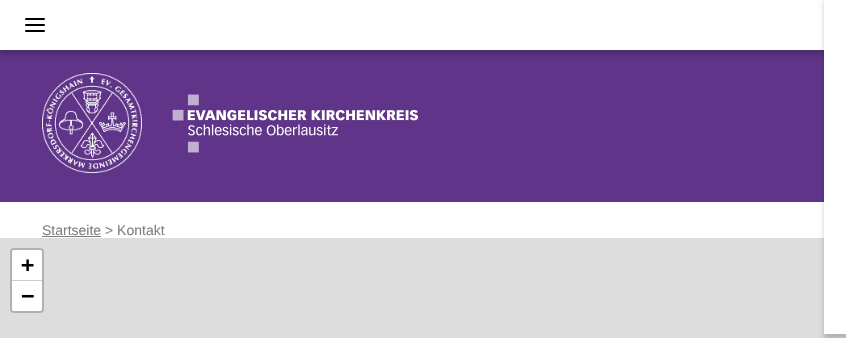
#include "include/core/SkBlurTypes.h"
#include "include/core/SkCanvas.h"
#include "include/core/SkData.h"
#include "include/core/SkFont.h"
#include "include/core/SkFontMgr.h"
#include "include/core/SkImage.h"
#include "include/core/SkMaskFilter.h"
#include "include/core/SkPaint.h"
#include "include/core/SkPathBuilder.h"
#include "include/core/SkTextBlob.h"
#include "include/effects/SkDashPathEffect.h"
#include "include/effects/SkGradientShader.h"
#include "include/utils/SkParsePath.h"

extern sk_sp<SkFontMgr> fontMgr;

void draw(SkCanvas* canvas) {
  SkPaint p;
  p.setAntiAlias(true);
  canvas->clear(SK_ColorWHITE);
  p.setColor(SkColorSetRGB(96, 53, 137));
  canvas->drawRect(SkRect::MakeLTRB(0, 50, 824, 202), p);
  p.setColor(SkColorSetARGB(51, 0, 0, 0));
  p.setMaskFilter(SkMaskFilter::MakeBlur(kNormal_SkBlurStyle, 2.5f));
  canvas->drawRect(SkRect::MakeLTRB(0, 5, 824, 55), p);
  p.setMaskFilter(nullptr);
  p.setColor(SK_ColorWHITE);
  canvas->drawRect(SkRect::MakeLTRB(0, 1, 824, 50), p);
  p.setColor(SK_ColorBLACK);
  canvas->drawRoundRect(SkRect::MakeLTRB(25, 24, 45, 26), 1, 1, p);
  canvas->drawRoundRect(SkRect::MakeLTRB(25, 18, 45, 20), 1, 1, p);
  canvas->drawRoundRect(SkRect::MakeLTRB(25, 30, 45, 32), 1, 1, p);
  canvas->drawImageRect(SkImages::DeferredFromEncodedData(SkData::MakeFromFileName("images/3.png")), SkRect::MakeLTRB(0, 238, 846, 338), SkSamplingOptions());
  p.setColor(SkColorSetARGB(51, 0, 0, 0));
  p.setMaskFilter(SkMaskFilter::MakeBlur(kNormal_SkBlurStyle, 2.5f));
  canvas->drawRect(SkRect::MakeLTRB(824, 1, 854, 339), p);
  p.setMaskFilter(nullptr);
  p.setColor(SK_ColorWHITE);
  canvas->drawRect(SkRect::MakeLTRB(824, 0, 846, 334), p);
  canvas->drawImageRect(SkImages::DeferredFromEncodedData(SkData::MakeFromFileName("images/1.png")), SkRect::MakeLTRB(42, 73, 142, 173), SkSamplingOptions());
  canvas->drawImageRect(SkImages::DeferredFromEncodedData(SkData::MakeFromFileName("images/2.png")), SkRect::MakeLTRB(172, 94, 418, 153), SkSamplingOptions());
  p.setColor(SkColorSetRGB(126, 127, 129));
  canvas->drawRect(SkRect::MakeLTRB(42, 236, 101, 237), p);
  SkFont font1(fontMgr->matchFamilyStyle("Liberation Sans", SkFontStyle::Normal()), 14);
  font1.setSubpixel(true);
  canvas->drawString("Startseite > Kontakt", 42, 235, font1, p);
}
